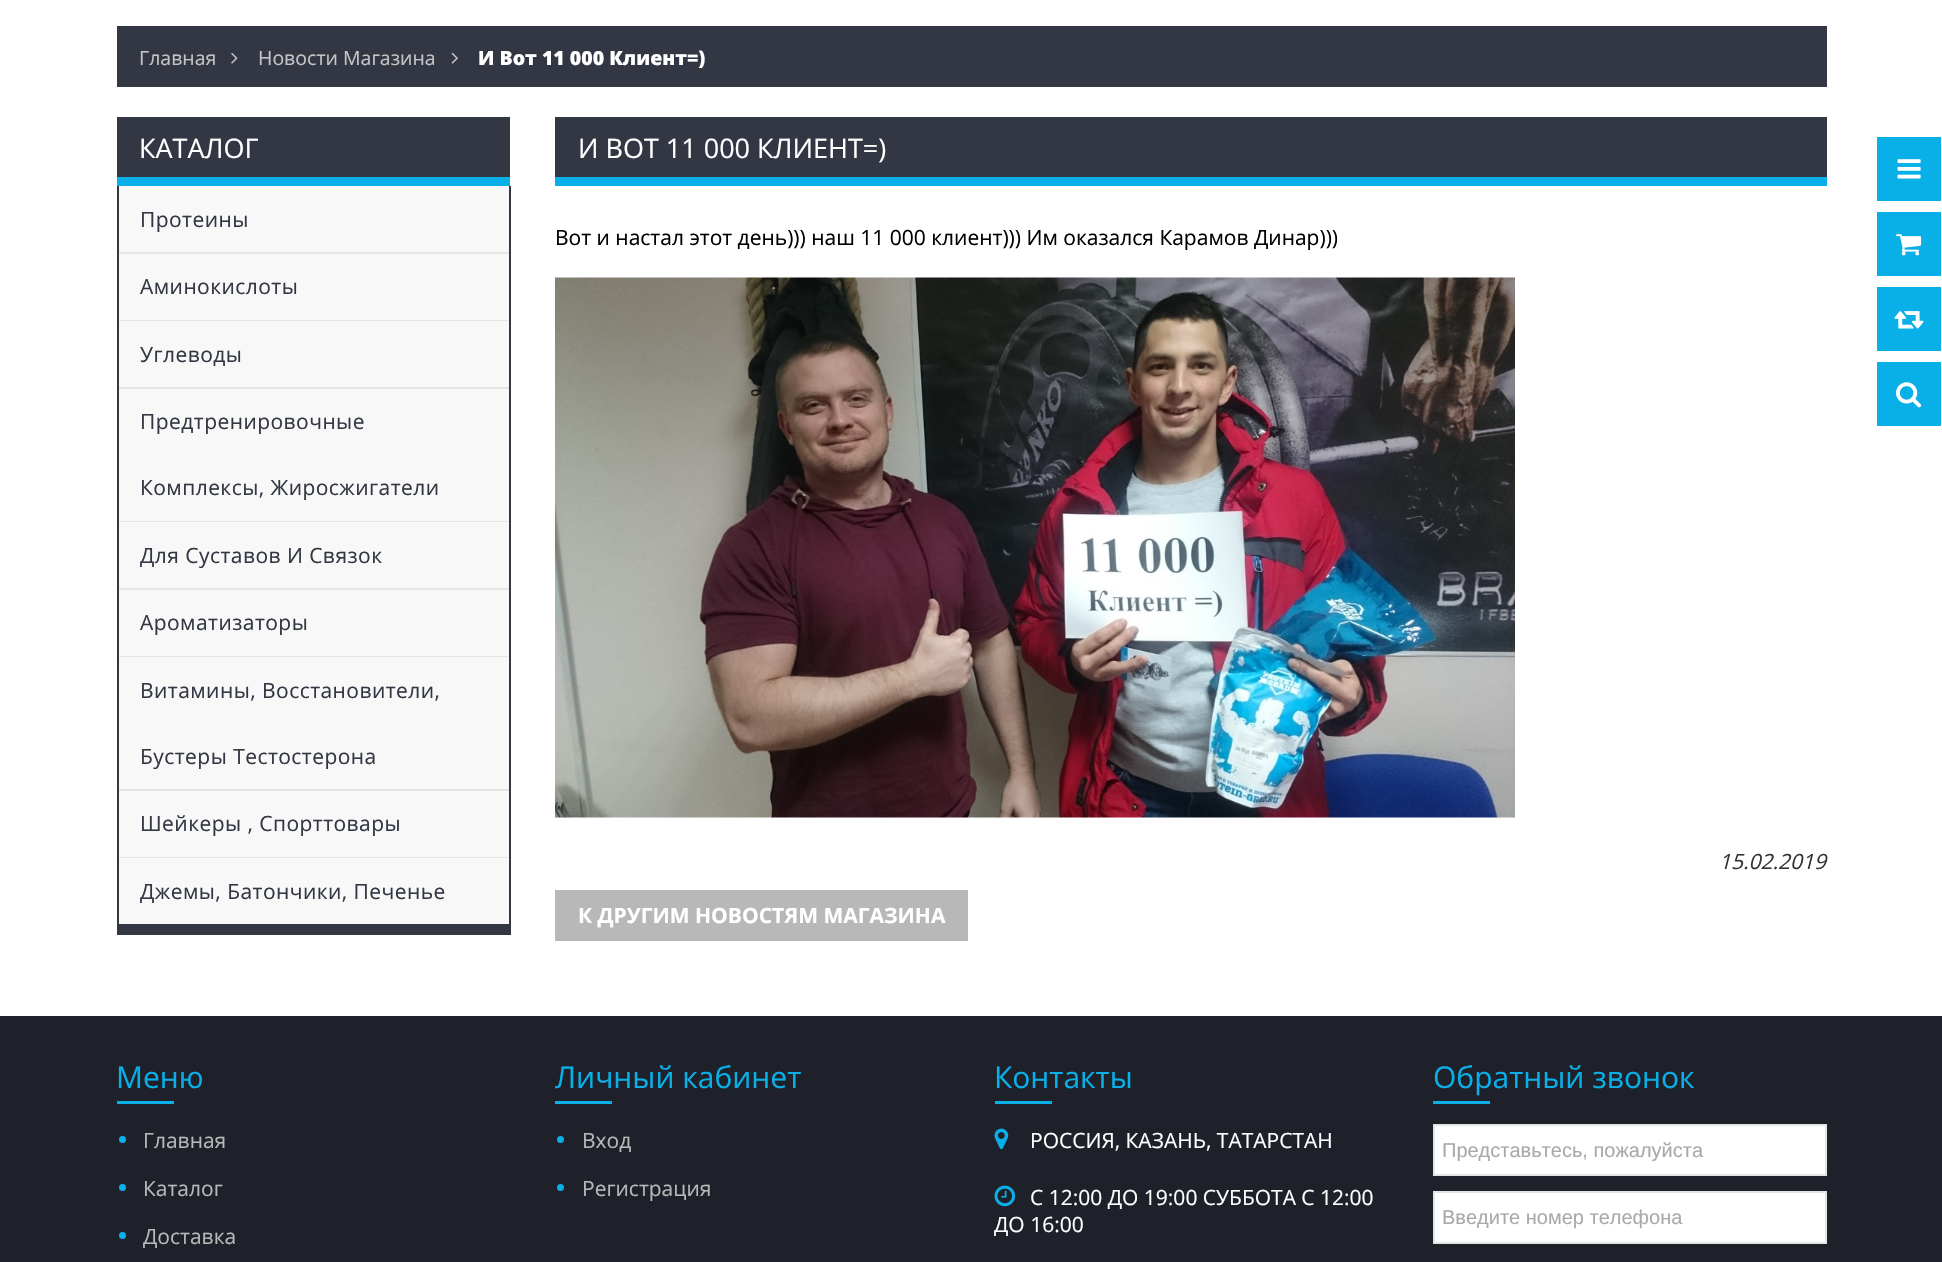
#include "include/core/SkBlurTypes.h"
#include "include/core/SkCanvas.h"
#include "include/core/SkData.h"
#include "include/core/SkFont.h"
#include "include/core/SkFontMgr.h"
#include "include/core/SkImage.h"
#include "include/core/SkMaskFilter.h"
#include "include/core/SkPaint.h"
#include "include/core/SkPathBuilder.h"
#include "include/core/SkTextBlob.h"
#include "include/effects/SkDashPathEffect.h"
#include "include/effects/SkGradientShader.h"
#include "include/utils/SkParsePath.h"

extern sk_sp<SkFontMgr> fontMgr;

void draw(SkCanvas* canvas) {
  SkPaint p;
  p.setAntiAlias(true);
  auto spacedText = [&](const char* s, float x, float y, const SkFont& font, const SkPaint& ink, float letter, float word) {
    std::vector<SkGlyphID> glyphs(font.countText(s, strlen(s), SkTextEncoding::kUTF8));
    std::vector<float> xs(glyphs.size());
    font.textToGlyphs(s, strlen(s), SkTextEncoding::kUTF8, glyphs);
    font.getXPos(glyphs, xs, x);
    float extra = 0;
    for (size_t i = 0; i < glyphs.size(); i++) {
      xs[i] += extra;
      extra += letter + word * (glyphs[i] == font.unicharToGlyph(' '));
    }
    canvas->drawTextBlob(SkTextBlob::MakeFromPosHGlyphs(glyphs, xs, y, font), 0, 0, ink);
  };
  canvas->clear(SK_ColorWHITE);
  p.setColor(SkColorSetRGB(51, 55, 68));
  canvas->drawRect(SkRect::MakeLTRB(117, 26, 1827, 87), p);
  canvas->drawImageRect(SkImages::DeferredFromEncodedData(SkData::MakeFromFileName("images/1.png")), SkRect::MakeLTRB(231, 52, 238, 64), SkSamplingOptions());
  canvas->drawImageRect(SkImages::DeferredFromEncodedData(SkData::MakeFromFileName("images/2.png")), SkRect::MakeLTRB(451, 52, 458, 64), SkSamplingOptions());
  canvas->drawRect(SkRect::MakeLTRB(117, 117, 510, 177), p);
  p.setColor(SkColorSetRGB(9, 175, 231));
  canvas->drawRect(SkRect::MakeLTRB(117, 177, 510, 186), p);
  p.setColor(SkColorSetRGB(51, 55, 68));
  canvas->drawRect(SkRect::MakeLTRB(509, 186, 511, 935), p);
  canvas->drawRect(SkRect::MakeLTRB(119, 924, 509, 935), p);
  canvas->drawRect(SkRect::MakeLTRB(117, 186, 119, 935), p);
  p.setColor(SkColorSetRGB(248, 248, 248));
  canvas->drawRect(SkRect::MakeLTRB(119, 186, 509, 252), p);
  p.setColor(SkColorSetRGB(229, 229, 229));
  canvas->drawRect(SkRect::MakeLTRB(119, 252, 509, 254), p);
  p.setColor(SkColorSetRGB(248, 248, 248));
  canvas->drawRect(SkRect::MakeLTRB(119, 254, 509, 320), p);
  p.setColor(SkColorSetRGB(229, 229, 229));
  canvas->drawRect(SkRect::MakeLTRB(119, 320, 509, 321), p);
  p.setColor(SkColorSetRGB(248, 248, 248));
  canvas->drawRect(SkRect::MakeLTRB(119, 321, 509, 387), p);
  p.setColor(SkColorSetRGB(229, 229, 229));
  canvas->drawRect(SkRect::MakeLTRB(119, 387, 509, 389), p);
  p.setColor(SkColorSetRGB(248, 248, 248));
  canvas->drawRect(SkRect::MakeLTRB(119, 389, 509, 521), p);
  p.setColor(SkColorSetRGB(229, 229, 229));
  canvas->drawRect(SkRect::MakeLTRB(119, 521, 509, 522), p);
  p.setColor(SkColorSetRGB(248, 248, 248));
  canvas->drawRect(SkRect::MakeLTRB(119, 522, 509, 588), p);
  p.setColor(SkColorSetRGB(229, 229, 229));
  canvas->drawRect(SkRect::MakeLTRB(119, 588, 509, 590), p);
  p.setColor(SkColorSetRGB(248, 248, 248));
  canvas->drawRect(SkRect::MakeLTRB(119, 590, 509, 656), p);
  p.setColor(SkColorSetRGB(229, 229, 229));
  canvas->drawRect(SkRect::MakeLTRB(119, 656, 509, 657), p);
  p.setColor(SkColorSetRGB(248, 248, 248));
  canvas->drawRect(SkRect::MakeLTRB(119, 657, 509, 789), p);
  p.setColor(SkColorSetRGB(229, 229, 229));
  canvas->drawRect(SkRect::MakeLTRB(119, 789, 509, 791), p);
  p.setColor(SkColorSetRGB(248, 248, 248));
  canvas->drawRect(SkRect::MakeLTRB(119, 791, 509, 857), p);
  p.setColor(SkColorSetRGB(229, 229, 229));
  canvas->drawRect(SkRect::MakeLTRB(119, 857, 509, 858), p);
  p.setColor(SkColorSetRGB(248, 248, 248));
  canvas->drawRect(SkRect::MakeLTRB(119, 858, 509, 924), p);
  p.setColor(SkColorSetRGB(51, 55, 68));
  canvas->drawRect(SkRect::MakeLTRB(555, 117, 1827, 177), p);
  p.setColor(SkColorSetRGB(9, 175, 231));
  canvas->drawRect(SkRect::MakeLTRB(555, 177, 1827, 186), p);
  canvas->drawImageRect(SkImages::DeferredFromEncodedData(SkData::MakeFromFileName("images/3.png")), SkRect::MakeLTRB(555, 277, 1515, 818), SkSamplingOptions());
  p.setColor(SkColorSetRGB(184, 184, 184));
  canvas->drawRect(SkRect::MakeLTRB(555, 890, 968, 941), p);
  p.setColor(SkColorSetRGB(9, 175, 231));
  canvas->drawRect(SkRect::MakeLTRB(1877, 137, 1941, 201), p);
  canvas->drawImageRect(SkImages::DeferredFromEncodedData(SkData::MakeFromFileName("images/4.png")), SkRect::MakeLTRB(1897, 159, 1921, 179), SkSamplingOptions());
  canvas->drawRect(SkRect::MakeLTRB(1877, 212, 1941, 276), p);
  canvas->drawImageRect(SkImages::DeferredFromEncodedData(SkData::MakeFromFileName("images/5.png")), SkRect::MakeLTRB(1896, 234, 1922, 256), SkSamplingOptions());
  canvas->drawRect(SkRect::MakeLTRB(1877, 287, 1941, 351), p);
  canvas->drawImageRect(SkImages::DeferredFromEncodedData(SkData::MakeFromFileName("images/6.png")), SkRect::MakeLTRB(1894, 311, 1924, 329), SkSamplingOptions());
  canvas->drawRect(SkRect::MakeLTRB(1877, 362, 1941, 426), p);
  canvas->drawImageRect(SkImages::DeferredFromEncodedData(SkData::MakeFromFileName("images/7.png")), SkRect::MakeLTRB(1896, 382, 1922, 408), SkSamplingOptions());
  p.setColor(SkColorSetRGB(30, 33, 42));
  canvas->drawRect(SkRect::MakeLTRB(0, 1016, 1942, 1262), p);
  p.setColor(SkColorSetRGB(9, 175, 231));
  canvas->drawRect(SkRect::MakeLTRB(117, 1101, 174, 1104), p);
  canvas->drawCircle(122.5f, 1139.5f, 3.5f, p);
  canvas->drawCircle(122.5f, 1187.5f, 3.5f, p);
  canvas->drawCircle(122.5f, 1235.5f, 3.5f, p);
  canvas->drawRect(SkRect::MakeLTRB(555, 1101, 612, 1104), p);
  canvas->drawCircle(560.5f, 1139.5f, 3.5f, p);
  canvas->drawCircle(560.5f, 1187.5f, 3.5f, p);
  canvas->drawRect(SkRect::MakeLTRB(995, 1101, 1052, 1104), p);
  canvas->drawImageRect(SkImages::DeferredFromEncodedData(SkData::MakeFromFileName("images/8.png")), SkRect::MakeLTRB(994, 1128, 1009, 1150), SkSamplingOptions());
  canvas->drawImageRect(SkImages::DeferredFromEncodedData(SkData::MakeFromFileName("images/9.png")), SkRect::MakeLTRB(994, 1185, 1016, 1207), SkSamplingOptions());
  canvas->drawRect(SkRect::MakeLTRB(1433, 1101, 1490, 1104), p);
  p.setColor(SK_ColorWHITE);
  canvas->drawRect(SkRect::MakeLTRB(1434, 1125, 1826, 1175), p);
  p.setStyle(SkPaint::kStroke_Style);
  p.setStrokeWidth(2);
  p.setColor(SkColorSetRGB(229, 229, 229));
  canvas->drawRect(SkRect::MakeLTRB(1434, 1125, 1826, 1175), p);
  p.setStyle(SkPaint::kFill_Style);
  p.setColor(SK_ColorWHITE);
  canvas->drawRect(SkRect::MakeLTRB(1434, 1192, 1826, 1243), p);
  p.setStyle(SkPaint::kStroke_Style);
  p.setColor(SkColorSetRGB(229, 229, 229));
  canvas->drawRect(SkRect::MakeLTRB(1434, 1192, 1826, 1243), p);
  SkFont font1(fontMgr->matchFamilyStyle("Open Sans", SkFontStyle::Normal()), 19.5f);
  font1.setSubpixel(true);
  p.setStyle(SkPaint::kFill_Style);
  p.setColor(SkColorSetRGB(197, 197, 197));
  canvas->drawString("Главная", 139, 65, font1, p);
  canvas->drawString("Новости Магазина", 258, 65, font1, p);
  SkFont font2(fontMgr->matchFamilyStyle("Open Sans", SkFontStyle(800, SkFontStyle::kNormal_Width, SkFontStyle::kUpright_Slant)), 19.5f);
  font2.setSubpixel(true);
  p.setColor(SK_ColorWHITE);
  canvas->drawString("И Вот 11 000 Клиент=)", 478, 65, font2, p);
  SkFont font3(fontMgr->matchFamilyStyle("Open Sans", SkFontStyle::Normal()), 27);
  font3.setSubpixel(true);
  canvas->drawString("КАТАЛОГ", 139, 158, font3, p);
  SkFont font4(fontMgr->matchFamilyStyle("Open Sans", SkFontStyle::Normal()), 21);
  font4.setSubpixel(true);
  p.setColor(SkColorSetRGB(51, 55, 68));
  spacedText("Протеины", 140, 227, font4, p, 0.45f, 0);
  spacedText("Аминокислоты", 140, 294, font4, p, 0.45f, 0);
  spacedText("Углеводы", 140, 362, font4, p, 0.45f, 0);
  spacedText("Предтренировочные", 140, 429, font4, p, 0.45f, 0);
  spacedText("Комплексы, Жиросжигатели", 140, 495, font4, p, 0.45f, 0);
  spacedText("Для Суставов И Связок", 140, 563, font4, p, 0.45f, 0);
  spacedText("Ароматизаторы", 140, 630, font4, p, 0.45f, 0);
  spacedText("Витамины, Восстановители,", 140, 698, font4, p, 0.45f, 0);
  spacedText("Бустеры Тестостерона", 140, 764, font4, p, 0.45f, 0);
  spacedText("Шейкеры , Спорттовары", 140, 831, font4, p, 0.45f, 0);
  spacedText("Джемы, Батончики, Печенье", 140, 899, font4, p, 0.45f, 0);
  p.setColor(SK_ColorWHITE);
  canvas->drawString("И ВОТ 11 000 КЛИЕНТ=)", 578, 158, font3, p);
  p.setColor(SK_ColorBLACK);
  canvas->drawString("Вот и настал этот день))) наш 11 000 клиент))) Им оказался Карамов Динар)))", 555, 245, font4, p);
  SkFont font5(fontMgr->matchFamilyStyle("Open Sans", SkFontStyle::Italic()), 21);
  font5.setSubpixel(true);
  p.setColor(SkColorSetRGB(51, 51, 51));
  canvas->drawString("15.02.2019", 1719, 869, font5, p);
  SkFont font6(fontMgr->matchFamilyStyle("Open Sans", SkFontStyle::Bold()), 21);
  font6.setSubpixel(true);
  p.setColor(SK_ColorWHITE);
  canvas->drawString("К ДРУГИМ НОВОСТЯМ МАГАЗИНА", 578, 923, font6, p);
  SkFont font7(fontMgr->matchFamilyStyle("Open Sans", SkFontStyle::Normal()), 30);
  font7.setSubpixel(true);
  p.setColor(SkColorSetRGB(9, 175, 231));
  canvas->drawString("Меню", 116, 1088, font7, p);
  p.setColor(SkColorSetRGB(184, 184, 184));
  canvas->drawString("Главная", 143, 1148, font4, p);
  canvas->drawString("Каталог", 143, 1196, font4, p);
  canvas->drawString("Доставка", 143, 1244, font4, p);
  p.setColor(SkColorSetRGB(9, 175, 231));
  canvas->drawString("Личный кабинет", 555, 1088, font7, p);
  p.setColor(SkColorSetRGB(184, 184, 184));
  canvas->drawString("Вход", 582, 1148, font4, p);
  canvas->drawString("Регистрация", 582, 1196, font4, p);
  p.setColor(SkColorSetRGB(9, 175, 231));
  canvas->drawString("Контакты", 994, 1088, font7, p);
  p.setColor(SK_ColorWHITE);
  canvas->drawString("РОССИЯ, КАЗАНЬ, ТАТАРСТАН", 1030, 1148, font4, p);
  canvas->drawString("С 12:00 ДО 19:00 СУББОТА С 12:00", 1030, 1205, font4, p);
  canvas->drawString("ДО 16:00", 994, 1232, font4, p);
  p.setColor(SkColorSetRGB(9, 175, 231));
  canvas->drawString("Обратный звонок", 1433, 1088, font7, p);
  canvas->save();
  canvas->clipRect(SkRect::MakeLTRB(1442, 1139, 1818, 1161));
  SkFont font8(fontMgr->matchFamilyStyle("Liberation Sans", SkFontStyle::Normal()), 20);
  font8.setSubpixel(true);
  p.setColor(SkColorSetRGB(169, 169, 169));
  canvas->drawString("Представьтесь, пожалуйста", 1442, 1157, font8, p);
  canvas->restore();
  canvas->drawString("Введите номер телефона", 1442, 1224, font8, p);
}
